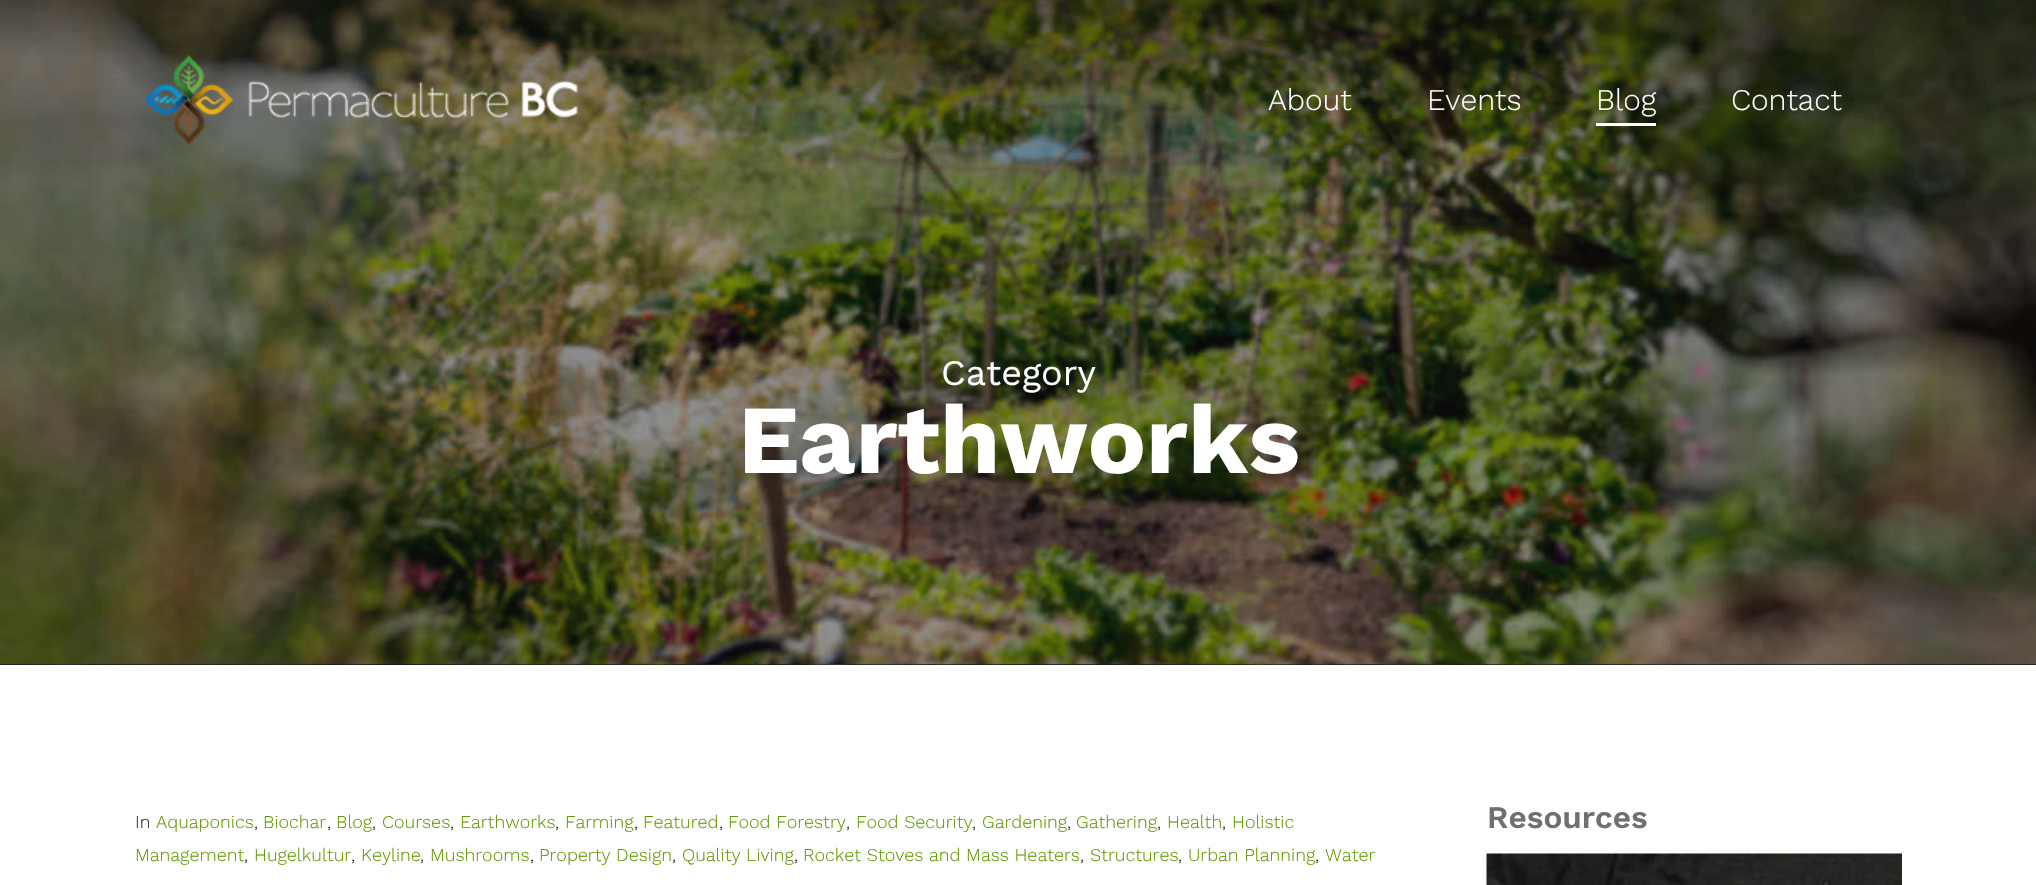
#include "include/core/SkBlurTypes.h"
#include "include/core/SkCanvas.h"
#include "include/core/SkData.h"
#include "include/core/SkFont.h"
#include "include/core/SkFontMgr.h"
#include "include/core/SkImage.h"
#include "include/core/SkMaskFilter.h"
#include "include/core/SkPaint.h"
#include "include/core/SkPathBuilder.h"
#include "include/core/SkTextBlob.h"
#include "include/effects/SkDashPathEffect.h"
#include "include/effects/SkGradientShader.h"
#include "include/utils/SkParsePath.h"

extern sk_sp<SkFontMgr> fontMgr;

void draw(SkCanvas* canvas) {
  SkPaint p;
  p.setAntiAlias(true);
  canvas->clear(SK_ColorWHITE);
  canvas->drawImageRect(SkImages::DeferredFromEncodedData(SkData::MakeFromFileName("images/3.png")), SkRect::MakeLTRB(0, 664, 2036, 665), SkSamplingOptions());
  canvas->drawImageRect(SkImages::DeferredFromEncodedData(SkData::MakeFromFileName("images/2.png")), SkRect::MakeLTRB(0, 0, 2036, 665), SkSamplingOptions());
  p.setColor(SkColorSetARGB(89, 25, 25, 25));
  canvas->drawRect(SkRect::MakeLTRB(0, 0, 2036, 665), p);
  canvas->drawImageRect(SkImages::DeferredFromEncodedData(SkData::MakeFromFileName("images/1.png")), SkRect::MakeLTRB(144, 55, 578, 145), SkSamplingOptions());
  p.setColor(SK_ColorWHITE);
  canvas->drawRect(SkRect::MakeLTRB(1596, 123, 1656, 126), p);
  canvas->drawImageRect(SkImages::DeferredFromEncodedData(SkData::MakeFromFileName("images/4.png")), SkRect::MakeLTRB(1486, 853, 1902, 885), SkSamplingOptions());
  SkFont font1(fontMgr->matchFamilyStyle("Work Sans", SkFontStyle(300, SkFontStyle::kNormal_Width, SkFontStyle::kUpright_Slant)), 30);
  font1.setSubpixel(true);
  canvas->drawString("About", 1268, 110, font1, p);
  canvas->drawString("Events", 1427, 110, font1, p);
  canvas->drawString("Blog", 1596, 110, font1, p);
  canvas->drawString("Contact", 1731, 110, font1, p);
  SkFont font2(fontMgr->matchFamilyStyle("Work Sans", SkFontStyle::Normal()), 36);
  font2.setSubpixel(true);
  canvas->drawString("Category", 941, 385, font2, p);
  SkFont font3(fontMgr->matchFamilyStyle("Work Sans", SkFontStyle::Bold()), 97.25f);
  font3.setSubpixel(true);
  canvas->drawString("Earthworks", 738, 473, font3, p);
  SkFont font4(fontMgr->matchFamilyStyle("Work Sans", SkFontStyle(300, SkFontStyle::kNormal_Width, SkFontStyle::kUpright_Slant)), 18);
  font4.setSubpixel(true);
  p.setColor(SkColorSetRGB(51, 51, 51));
  canvas->drawString("In", 135, 828, font4, p);
  p.setColor(SkColorSetRGB(96, 153, 0));
  canvas->drawString("Aquaponics", 156, 828, font4, p);
  canvas->drawString("Biochar", 263, 828, font4, p);
  canvas->drawString("Blog", 336, 828, font4, p);
  canvas->drawString("Courses", 382, 828, font4, p);
  canvas->drawString("Earthworks", 460, 828, font4, p);
  canvas->drawString("Farming", 565, 828, font4, p);
  canvas->drawString("Featured", 643, 828, font4, p);
  canvas->drawString("Food Forestry", 728, 828, font4, p);
  canvas->drawString("Food Security", 856, 828, font4, p);
  canvas->drawString("Gardening", 982, 828, font4, p);
  canvas->drawString("Gathering", 1076, 828, font4, p);
  canvas->drawString("Health", 1167, 828, font4, p);
  canvas->drawString("Holistic", 1232, 828, font4, p);
  p.setColor(SkColorSetRGB(51, 51, 51));
  canvas->drawString(",", 254, 828, font4, p);
  canvas->drawString(",", 327, 828, font4, p);
  canvas->drawString(",", 372, 828, font4, p);
  canvas->drawString(",", 450, 828, font4, p);
  canvas->drawString(",", 555, 828, font4, p);
  canvas->drawString(",", 634, 828, font4, p);
  canvas->drawString(",", 719, 828, font4, p);
  canvas->drawString(",", 846, 828, font4, p);
  canvas->drawString(",", 972, 828, font4, p);
  canvas->drawString(",", 1067, 828, font4, p);
  canvas->drawString(",", 1157, 828, font4, p);
  canvas->drawString(",", 1222, 828, font4, p);
  p.setColor(SkColorSetRGB(96, 153, 0));
  canvas->drawString("Management", 135, 861, font4, p);
  p.setColor(SkColorSetRGB(51, 51, 51));
  canvas->drawString(",", 244, 861, font4, p);
  p.setColor(SkColorSetRGB(96, 153, 0));
  canvas->drawString("Hugelkultur", 254, 861, font4, p);
  p.setColor(SkColorSetRGB(51, 51, 51));
  canvas->drawString(",", 351, 861, font4, p);
  p.setColor(SkColorSetRGB(96, 153, 0));
  canvas->drawString("Keyline", 361, 861, font4, p);
  p.setColor(SkColorSetRGB(51, 51, 51));
  canvas->drawString(",", 420, 861, font4, p);
  p.setColor(SkColorSetRGB(96, 153, 0));
  canvas->drawString("Mushrooms", 430, 861, font4, p);
  p.setColor(SkColorSetRGB(51, 51, 51));
  canvas->drawString(",", 530, 861, font4, p);
  p.setColor(SkColorSetRGB(96, 153, 0));
  canvas->drawString("Property Design", 539, 861, font4, p);
  p.setColor(SkColorSetRGB(51, 51, 51));
  canvas->drawString(",", 672, 861, font4, p);
  p.setColor(SkColorSetRGB(96, 153, 0));
  canvas->drawString("Quality Living", 682, 861, font4, p);
  p.setColor(SkColorSetRGB(51, 51, 51));
  canvas->drawString(",", 794, 861, font4, p);
  p.setColor(SkColorSetRGB(96, 153, 0));
  canvas->drawString("Rocket Stoves and Mass Heaters", 803, 861, font4, p);
  p.setColor(SkColorSetRGB(51, 51, 51));
  canvas->drawString(",", 1080, 861, font4, p);
  p.setColor(SkColorSetRGB(96, 153, 0));
  canvas->drawString("Structures", 1090, 861, font4, p);
  p.setColor(SkColorSetRGB(51, 51, 51));
  canvas->drawString(",", 1178, 861, font4, p);
  p.setColor(SkColorSetRGB(96, 153, 0));
  canvas->drawString("Urban Planning", 1188, 861, font4, p);
  p.setColor(SkColorSetRGB(51, 51, 51));
  canvas->drawString(",", 1315, 861, font4, p);
  p.setColor(SkColorSetRGB(96, 153, 0));
  canvas->drawString("Water", 1325, 861, font4, p);
  SkFont font5(fontMgr->matchFamilyStyle("Work Sans", SkFontStyle(600, SkFontStyle::kNormal_Width, SkFontStyle::kUpright_Slant)), 31.5f);
  font5.setSubpixel(true);
  p.setColor(SkColorSetRGB(112, 112, 112));
  canvas->drawString("Resources", 1487, 828, font5, p);
}
